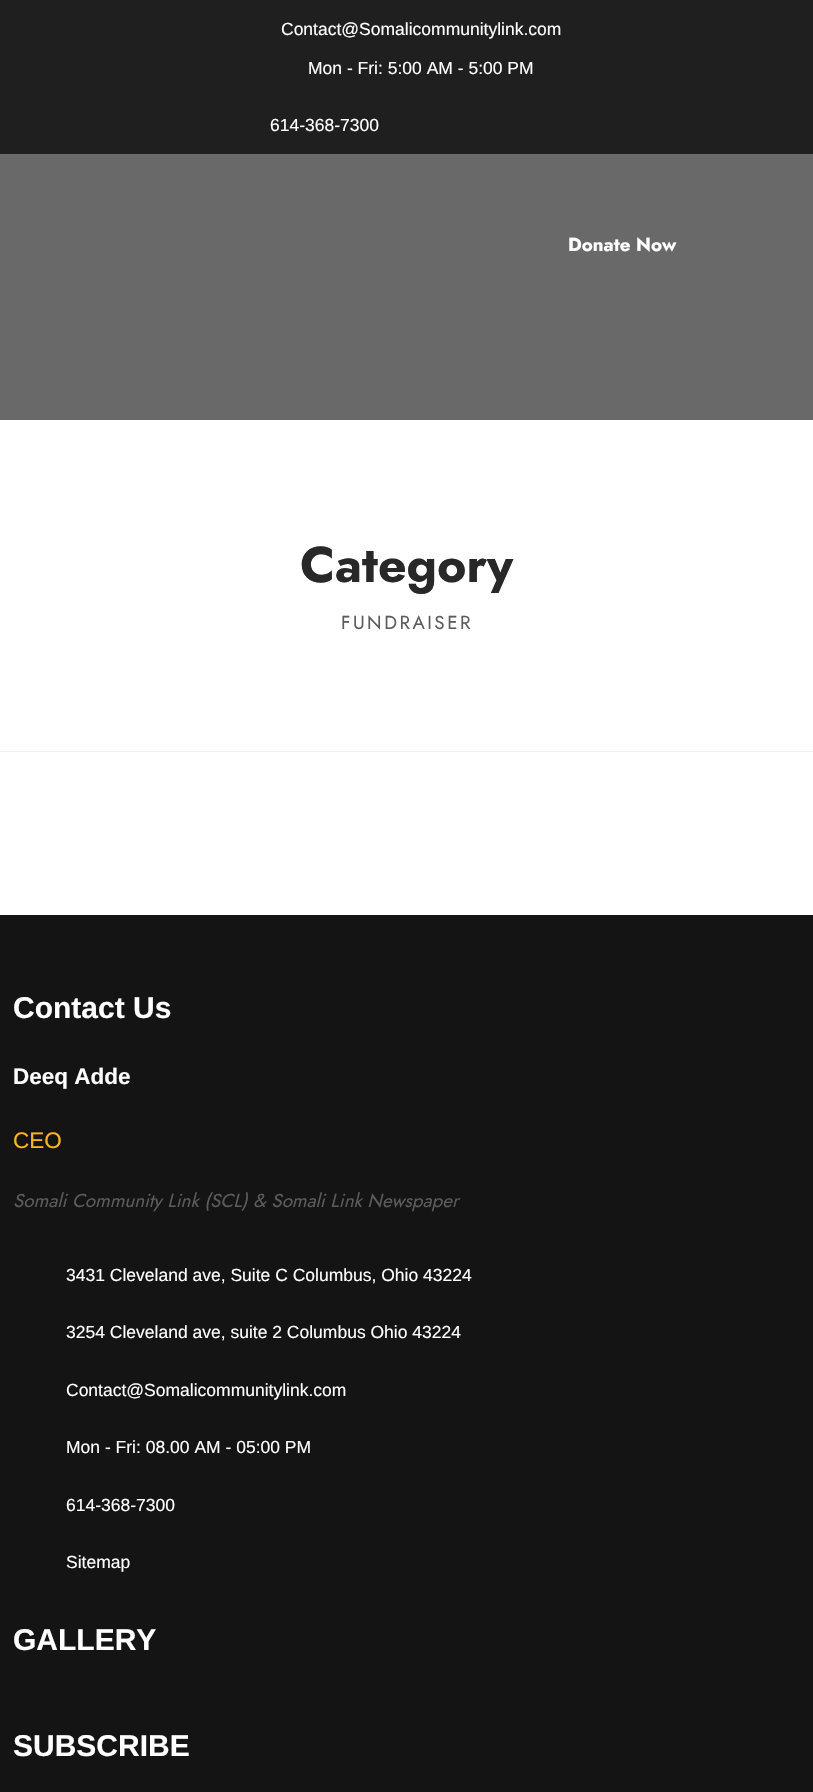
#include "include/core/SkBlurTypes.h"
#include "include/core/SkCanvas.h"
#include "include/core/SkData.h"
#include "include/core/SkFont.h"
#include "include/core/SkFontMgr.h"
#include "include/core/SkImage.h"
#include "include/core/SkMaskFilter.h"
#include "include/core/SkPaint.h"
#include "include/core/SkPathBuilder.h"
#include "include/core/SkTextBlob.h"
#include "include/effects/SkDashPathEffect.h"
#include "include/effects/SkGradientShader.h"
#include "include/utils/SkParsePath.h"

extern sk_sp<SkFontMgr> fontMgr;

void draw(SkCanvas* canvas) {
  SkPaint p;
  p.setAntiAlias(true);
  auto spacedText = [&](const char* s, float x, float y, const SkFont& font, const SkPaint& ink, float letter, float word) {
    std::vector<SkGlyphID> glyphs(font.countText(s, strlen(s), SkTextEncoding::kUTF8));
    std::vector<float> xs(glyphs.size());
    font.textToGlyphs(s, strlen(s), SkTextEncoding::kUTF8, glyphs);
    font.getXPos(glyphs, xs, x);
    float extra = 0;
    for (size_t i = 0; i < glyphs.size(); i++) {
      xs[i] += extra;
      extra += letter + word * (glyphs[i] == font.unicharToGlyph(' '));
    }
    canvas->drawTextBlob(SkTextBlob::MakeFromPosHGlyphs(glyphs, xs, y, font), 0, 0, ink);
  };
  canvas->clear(SK_ColorWHITE);
  p.setColor(SkColorSetRGB(31, 31, 31));
  canvas->drawRect(SkRect::MakeLTRB(0, 0, 813, 154), p);
  p.setColor(SkColorSetRGB(105, 105, 105));
  canvas->drawRect(SkRect::MakeLTRB(0, 154, 813, 420), p);
  p.setColor(SkColorSetRGB(241, 241, 241));
  canvas->drawRect(SkRect::MakeLTRB(0, 751, 813, 752), p);
  p.setColor(SkColorSetRGB(20, 20, 20));
  canvas->drawRect(SkRect::MakeLTRB(0, 915, 813, 1792), p);
  SkFont font1(fontMgr->matchFamilyStyle("Liberation Sans", SkFontStyle::Normal()), 17.5f);
  font1.setSubpixel(true);
  p.setColor(SK_ColorWHITE);
  canvas->drawString("Contact@Somalicommunitylink.com", 281, 35, font1, p);
  canvas->drawString("Mon - Fri: 5:00 AM - 5:00 PM", 308, 74, font1, p);
  canvas->drawString("614-368-7300", 270, 131, font1, p);
  SkFont font2(fontMgr->matchFamilyStyle("Jost", SkFontStyle::Bold()), 18.75f);
  font2.setSubpixel(true);
  canvas->drawString("Donate Now", 568, 251, font2, p);
  SkFont font3(fontMgr->matchFamilyStyle("Jost", SkFontStyle::Bold()), 50);
  font3.setSubpixel(true);
  p.setColor(SkColorSetRGB(40, 40, 40));
  canvas->drawString("Category", 300, 582, font3, p);
  SkFont font4(fontMgr->matchFamilyStyle("Jost", SkFontStyle::Normal()), 18.75f);
  font4.setSubpixel(true);
  p.setColor(SkColorSetRGB(92, 92, 92));
  spacedText("FUNDRAISER", 341, 629, font4, p, 2.5f, 0);
  SkFont font5(fontMgr->matchFamilyStyle("Liberation Sans", SkFontStyle::Bold()), 30);
  font5.setSubpixel(true);
  p.setColor(SK_ColorWHITE);
  canvas->drawString("Contact Us", 13, 1018, font5, p);
  SkFont font6(fontMgr->matchFamilyStyle("Liberation Sans", SkFontStyle::Bold()), 22.5f);
  font6.setSubpixel(true);
  canvas->drawString("Deeq Adde", 13, 1084, font6, p);
  SkFont font7(fontMgr->matchFamilyStyle("Liberation Sans", SkFontStyle::Normal()), 22.5f);
  font7.setSubpixel(true);
  p.setColor(SkColorSetRGB(255, 180, 34));
  canvas->drawString("CEO", 13, 1148, font7, p);
  SkFont font8(fontMgr->matchFamilyStyle("Jost", SkFontStyle::Italic()), 18.75f);
  font8.setSubpixel(true);
  p.setColor(SkColorSetRGB(92, 92, 92));
  canvas->drawString("Somali Community Link (SCL) & Somali Link Newspaper", 13, 1207, font8, p);
  p.setColor(SK_ColorWHITE);
  canvas->drawString("3431 Cleveland ave, Suite C Columbus, Ohio 43224", 66, 1281, font1, p);
  canvas->drawString("3254 Cleveland ave, suite 2 Columbus Ohio 43224", 66, 1338, font1, p);
  canvas->drawString("Contact@Somalicommunitylink.com", 66, 1396, font1, p);
  canvas->drawString("Mon - Fri: 08.00 AM - 05:00 PM", 66, 1453, font1, p);
  canvas->drawString("614-368-7300", 66, 1511, font1, p);
  canvas->drawString("Sitemap", 66, 1568, font1, p);
  canvas->drawString("GALLERY", 13, 1650, font5, p);
  canvas->drawString("SUBSCRIBE", 13, 1756, font5, p);
}
